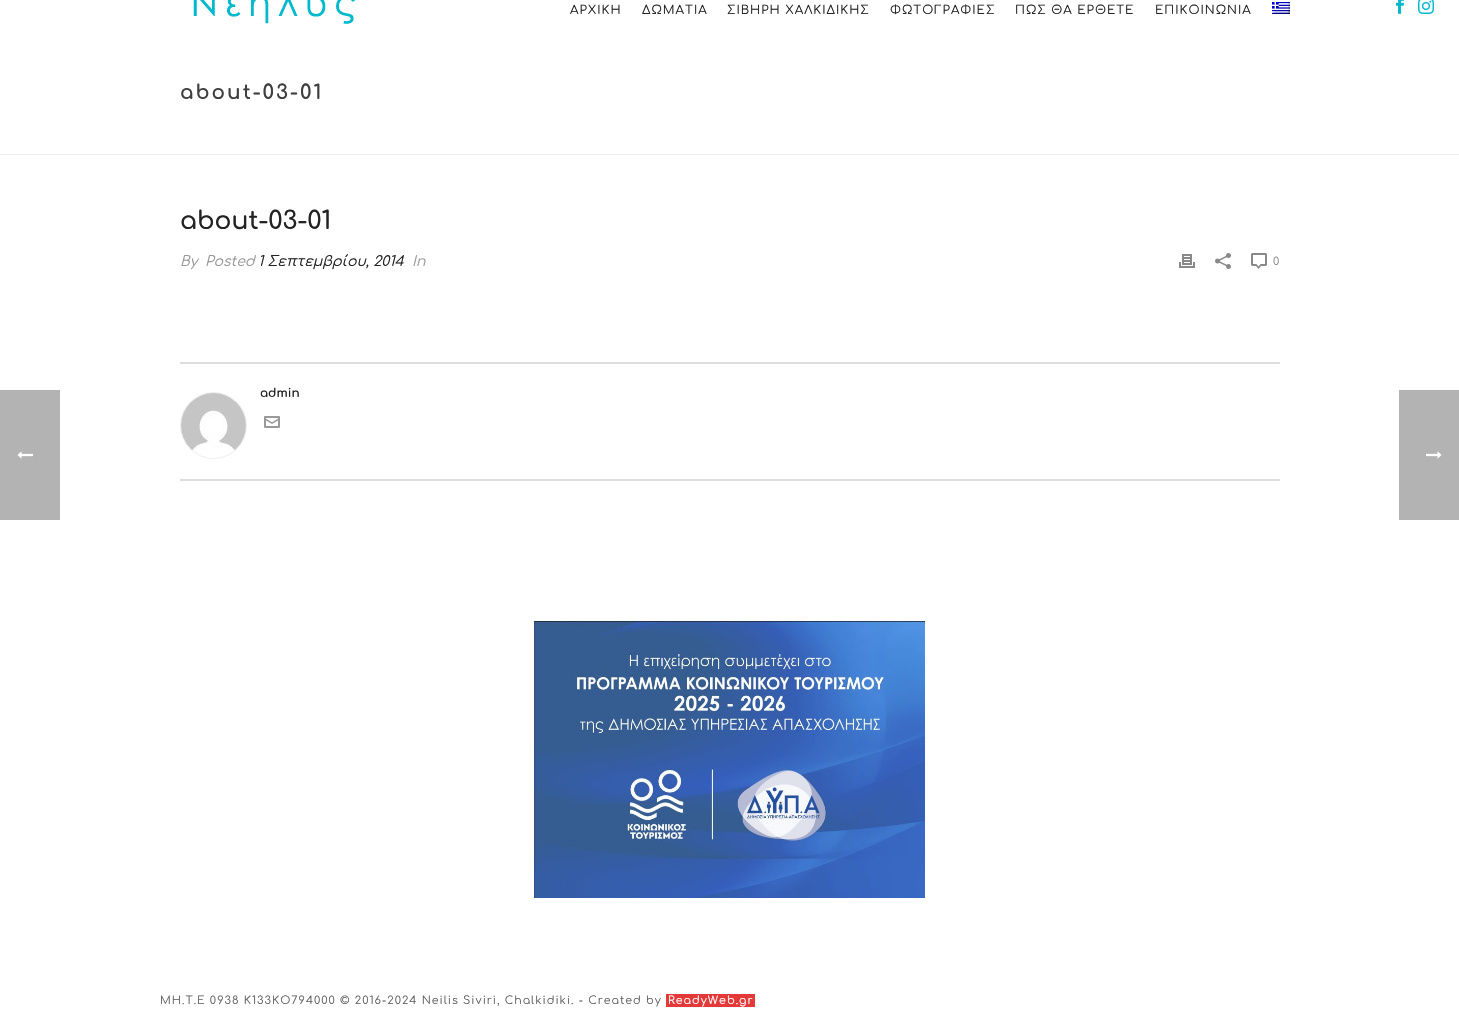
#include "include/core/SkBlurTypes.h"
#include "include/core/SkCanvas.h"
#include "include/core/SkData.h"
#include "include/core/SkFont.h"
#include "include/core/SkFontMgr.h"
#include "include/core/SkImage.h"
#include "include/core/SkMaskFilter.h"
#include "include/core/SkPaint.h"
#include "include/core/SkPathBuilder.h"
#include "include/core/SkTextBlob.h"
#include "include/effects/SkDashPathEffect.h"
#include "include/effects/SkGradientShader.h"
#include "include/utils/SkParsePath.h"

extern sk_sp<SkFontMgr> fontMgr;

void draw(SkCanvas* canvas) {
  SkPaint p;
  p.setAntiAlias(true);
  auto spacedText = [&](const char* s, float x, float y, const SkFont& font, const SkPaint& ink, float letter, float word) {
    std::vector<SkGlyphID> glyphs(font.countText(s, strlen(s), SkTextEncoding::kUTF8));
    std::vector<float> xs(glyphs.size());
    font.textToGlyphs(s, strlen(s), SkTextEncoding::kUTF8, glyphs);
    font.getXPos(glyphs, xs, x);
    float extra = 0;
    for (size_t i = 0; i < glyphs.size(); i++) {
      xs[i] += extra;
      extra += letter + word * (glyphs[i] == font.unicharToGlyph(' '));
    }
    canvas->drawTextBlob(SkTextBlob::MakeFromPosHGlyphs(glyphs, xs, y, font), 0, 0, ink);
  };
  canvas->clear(SK_ColorWHITE);
  p.setColor(SkColorSetRGB(179, 179, 179));
  canvas->drawRect(SkRect::MakeLTRB(0, 390, 60, 520), p);
  canvas->drawImageRect(SkImages::DeferredFromEncodedData(SkData::MakeFromFileName("images/1.png")), SkRect::MakeLTRB(17, 451, 33, 459), SkSamplingOptions());
  p.setColor(SkColorSetRGB(237, 237, 237));
  canvas->drawRect(SkRect::MakeLTRB(0, 154, 1459, 155), p);
  canvas->drawImageRect(SkImages::DeferredFromEncodedData(SkData::MakeFromFileName("images/2.png")), SkRect::MakeLTRB(193, 0, 355, 24), SkSamplingOptions());
  canvas->drawImageRect(SkImages::DeferredFromEncodedData(SkData::MakeFromFileName("images/3.png")), SkRect::MakeLTRB(1272, 2, 1290, 14), SkSamplingOptions());
  canvas->drawImageRect(SkImages::DeferredFromEncodedData(SkData::MakeFromFileName("images/4.png")), SkRect::MakeLTRB(1396, 0, 1404, 14), SkSamplingOptions());
  canvas->drawImageRect(SkImages::DeferredFromEncodedData(SkData::MakeFromFileName("images/5.png")), SkRect::MakeLTRB(1418, 0, 1434, 14), SkSamplingOptions());
  canvas->drawImageRect(SkImages::DeferredFromEncodedData(SkData::MakeFromFileName("images/6.png")), SkRect::MakeLTRB(1179, 254, 1195, 268), SkSamplingOptions());
  canvas->drawImageRect(SkImages::DeferredFromEncodedData(SkData::MakeFromFileName("images/7.png")), SkRect::MakeLTRB(1215, 253, 1231, 269), SkSamplingOptions());
  canvas->drawImageRect(SkImages::DeferredFromEncodedData(SkData::MakeFromFileName("images/8.png")), SkRect::MakeLTRB(1251, 253, 1267, 269), SkSamplingOptions());
  p.setColor(SkColorSetRGB(221, 221, 221));
  canvas->drawRect(SkRect::MakeLTRB(180, 362, 1280, 364), p);
  canvas->drawRect(SkRect::MakeLTRB(180, 479, 1280, 481), p);
  p.setStyle(SkPaint::kStroke_Style);
  p.setStrokeWidth(1);
  p.setColor(SkColorSetRGB(238, 238, 238));
  canvas->drawCircle(213.5f, 425.5f, 33, p);
  canvas->drawImageRect(SkImages::DeferredFromEncodedData(SkData::MakeFromFileName("images/9.png")), SkRect::MakeLTRB(181, 393, 246, 450), SkSamplingOptions());
  canvas->drawImageRect(SkImages::DeferredFromEncodedData(SkData::MakeFromFileName("images/10.png")), SkRect::MakeLTRB(264, 416, 280, 428), SkSamplingOptions());
  canvas->drawImageRect(SkImages::DeferredFromEncodedData(SkData::MakeFromFileName("images/11.png")), SkRect::MakeLTRB(534, 621, 925, 898), SkSamplingOptions());
  p.setStyle(SkPaint::kFill_Style);
  p.setColor(SkColorSetRGB(228, 57, 57));
  canvas->drawRect(SkRect::MakeLTRB(666, 994, 755, 1007), p);
  p.setColor(SkColorSetRGB(179, 179, 179));
  canvas->drawRect(SkRect::MakeLTRB(1399, 390, 1459, 520), p);
  canvas->drawImageRect(SkImages::DeferredFromEncodedData(SkData::MakeFromFileName("images/12.png")), SkRect::MakeLTRB(1426, 451, 1442, 459), SkSamplingOptions());
  SkFont font1(fontMgr->matchFamilyStyle("Comfortaa", SkFontStyle::Normal()), 12);
  font1.setSubpixel(true);
  p.setColor(SkColorSetRGB(35, 35, 35));
  spacedText("ΑΡΧΙΚΗ", 570, 14, font1, p, 1, 0);
  spacedText("ΔΩΜΑΤΙΑ", 642, 14, font1, p, 1, 0);
  spacedText("ΣΙΒΗΡΗ ΧΑΛΚΙΔΙΚΗΣ", 727, 14, font1, p, 1, 0);
  spacedText("ΦΩΤΟΓΡΑΦΙΕΣ", 890, 14, font1, p, 1, 0);
  spacedText("ΠΩΣ ΘΑ ΕΡΘΕΤΕ", 1015, 14, font1, p, 1, 0);
  spacedText("ΕΠΙΚΟΙΝΩΝΙΑ", 1155, 14, font1, p, 1, 0);
  SkFont font2(fontMgr->matchFamilyStyle("Comfortaa", SkFontStyle::Bold()), 20);
  font2.setSubpixel(true);
  p.setColor(SkColorSetRGB(63, 63, 63));
  spacedText("about-03-01", 180, 99, font2, p, 2, 0);
  SkFont font3(fontMgr->matchFamilyStyle("Comfortaa", SkFontStyle(600, SkFontStyle::kNormal_Width, SkFontStyle::kUpright_Slant)), 25);
  font3.setSubpixel(true);
  p.setColor(SkColorSetRGB(35, 35, 35));
  canvas->drawString("about-03-01", 180, 229, font3, p);
  SkFont font4(fontMgr->matchFamilyStyle("Comfortaa", SkFontStyle::Italic()), 14);
  font4.setSubpixel(true);
  p.setColor(SkColorSetRGB(153, 153, 153));
  canvas->drawString("By", 180, 266, font4, p);
  canvas->drawString("Posted", 205, 266, font4, p);
  p.setColor(SkColorSetRGB(35, 35, 35));
  canvas->drawString("1 Σεπτεμβρίου, 2014", 258, 266, font4, p);
  p.setColor(SkColorSetRGB(153, 153, 153));
  canvas->drawString("In", 412, 266, font4, p);
  SkFont font5(fontMgr->matchFamilyStyle("Comfortaa", SkFontStyle::Normal()), 11);
  font5.setSubpixel(true);
  p.setColor(SkColorSetRGB(137, 137, 137));
  canvas->drawString("0", 1273, 265, font5, p);
  SkFont font6(fontMgr->matchFamilyStyle("Comfortaa", SkFontStyle::Bold()), 12);
  font6.setSubpixel(true);
  p.setColor(SkColorSetRGB(35, 35, 35));
  canvas->drawString("admin", 260, 397, font6, p);
  p.setColor(SkColorSetRGB(97, 97, 97));
  spacedText("ΜΗ.Τ.Ε 0938 Κ133ΚΟ794000 © 2016-2024 Neilis Siviri, Chalkidiki. - Created by", 160, 1004, font5, p, 1, 0);
  p.setColor(SK_ColorWHITE);
  spacedText("ReadyWeb.gr", 668, 1004, font5, p, 1, 0);
}
